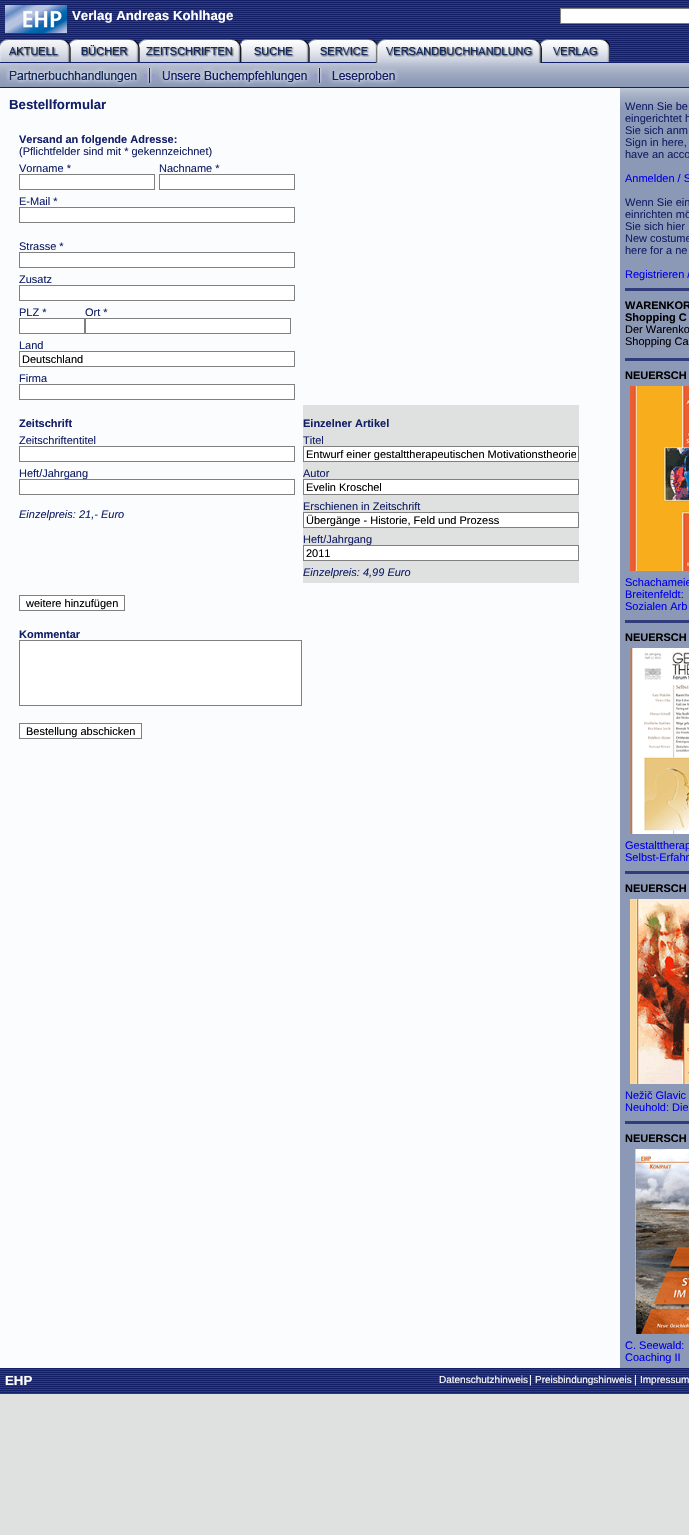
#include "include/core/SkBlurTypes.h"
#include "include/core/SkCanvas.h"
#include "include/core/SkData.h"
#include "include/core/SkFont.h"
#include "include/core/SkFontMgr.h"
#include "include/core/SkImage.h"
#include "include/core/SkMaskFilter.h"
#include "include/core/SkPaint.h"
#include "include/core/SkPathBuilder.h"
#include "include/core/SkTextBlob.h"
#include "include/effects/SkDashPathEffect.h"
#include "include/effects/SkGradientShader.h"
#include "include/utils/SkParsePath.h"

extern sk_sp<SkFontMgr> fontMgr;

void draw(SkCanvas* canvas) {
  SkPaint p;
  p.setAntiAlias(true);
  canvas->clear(SkColorSetRGB(223, 224, 224));
  p.setColor(SkColorSetRGB(250, 252, 254));
  canvas->drawRect(SkRect::MakeLTRB(0, 88, 620, 1368), p);
  canvas->drawImageRect(SkImages::DeferredFromEncodedData(SkData::MakeFromFileName("images/1.png")), SkRect::MakeLTRB(0, 0, 689, 62), SkSamplingOptions());
  canvas->drawImageRect(SkImages::DeferredFromEncodedData(SkData::MakeFromFileName("images/2.png")), SkRect::MakeLTRB(5, 5, 67, 33), SkSamplingOptions());
  p.setColor(SK_ColorWHITE);
  canvas->drawRect(SkRect::MakeLTRB(560.5f, 8.5f, 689.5f, 23.5f), p);
  p.setStyle(SkPaint::kStroke_Style);
  p.setStrokeWidth(1);
  p.setColor(SkColorSetRGB(128, 128, 128));
  canvas->drawRect(SkRect::MakeLTRB(560.5f, 8.5f, 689.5f, 23.5f), p);
  canvas->drawImageRect(SkImages::DeferredFromEncodedData(SkData::MakeFromFileName("images/3.png")), SkRect::MakeLTRB(0, 39, 71, 62), SkSamplingOptions());
  canvas->drawImageRect(SkImages::DeferredFromEncodedData(SkData::MakeFromFileName("images/4.png")), SkRect::MakeLTRB(71, 39, 140, 62), SkSamplingOptions());
  canvas->drawImageRect(SkImages::DeferredFromEncodedData(SkData::MakeFromFileName("images/5.png")), SkRect::MakeLTRB(140, 39, 242, 62), SkSamplingOptions());
  canvas->drawImageRect(SkImages::DeferredFromEncodedData(SkData::MakeFromFileName("images/6.png")), SkRect::MakeLTRB(242, 39, 310, 62), SkSamplingOptions());
  canvas->drawImageRect(SkImages::DeferredFromEncodedData(SkData::MakeFromFileName("images/7.png")), SkRect::MakeLTRB(310, 39, 375, 62), SkSamplingOptions());
  canvas->drawImageRect(SkImages::DeferredFromEncodedData(SkData::MakeFromFileName("images/10.png")), SkRect::MakeLTRB(0, 62, 689, 88), SkSamplingOptions());
  canvas->drawImageRect(SkImages::DeferredFromEncodedData(SkData::MakeFromFileName("images/8.png")), SkRect::MakeLTRB(375, 39, 543, 63), SkSamplingOptions());
  canvas->drawImageRect(SkImages::DeferredFromEncodedData(SkData::MakeFromFileName("images/9.png")), SkRect::MakeLTRB(543, 39, 610, 62), SkSamplingOptions());
  canvas->drawImageRect(SkImages::DeferredFromEncodedData(SkData::MakeFromFileName("images/11.png")), SkRect::MakeLTRB(6, 67, 141, 86), SkSamplingOptions());
  canvas->drawImageRect(SkImages::DeferredFromEncodedData(SkData::MakeFromFileName("images/12.png")), SkRect::MakeLTRB(144, 67, 155, 85), SkSamplingOptions());
  canvas->drawImageRect(SkImages::DeferredFromEncodedData(SkData::MakeFromFileName("images/13.png")), SkRect::MakeLTRB(159, 67, 311, 86), SkSamplingOptions());
  canvas->drawImageRect(SkImages::DeferredFromEncodedData(SkData::MakeFromFileName("images/12.png")), SkRect::MakeLTRB(314, 67, 325, 85), SkSamplingOptions());
  canvas->drawImageRect(SkImages::DeferredFromEncodedData(SkData::MakeFromFileName("images/14.png")), SkRect::MakeLTRB(328, 68, 399, 85), SkSamplingOptions());
  p.setStyle(SkPaint::kFill_Style);
  p.setColor(SkColorSetRGB(140, 153, 182));
  canvas->drawRect(SkRect::MakeLTRB(620, 107, 689, 1368), p);
  p.setColor(SK_ColorWHITE);
  canvas->drawRect(SkRect::MakeLTRB(19.5f, 174.5f, 154.5f, 189.5f), p);
  p.setStyle(SkPaint::kStroke_Style);
  p.setColor(SkColorSetRGB(128, 128, 128));
  canvas->drawRect(SkRect::MakeLTRB(19.5f, 174.5f, 154.5f, 189.5f), p);
  p.setStyle(SkPaint::kFill_Style);
  p.setColor(SK_ColorWHITE);
  canvas->drawRect(SkRect::MakeLTRB(159.5f, 174.5f, 294.5f, 189.5f), p);
  p.setStyle(SkPaint::kStroke_Style);
  p.setColor(SkColorSetRGB(128, 128, 128));
  canvas->drawRect(SkRect::MakeLTRB(159.5f, 174.5f, 294.5f, 189.5f), p);
  p.setStyle(SkPaint::kFill_Style);
  p.setColor(SK_ColorWHITE);
  canvas->drawRect(SkRect::MakeLTRB(19.5f, 207.5f, 294.5f, 222.5f), p);
  p.setStyle(SkPaint::kStroke_Style);
  p.setColor(SkColorSetRGB(128, 128, 128));
  canvas->drawRect(SkRect::MakeLTRB(19.5f, 207.5f, 294.5f, 222.5f), p);
  p.setStyle(SkPaint::kFill_Style);
  p.setColor(SK_ColorWHITE);
  canvas->drawRect(SkRect::MakeLTRB(19.5f, 252.5f, 294.5f, 267.5f), p);
  p.setStyle(SkPaint::kStroke_Style);
  p.setColor(SkColorSetRGB(128, 128, 128));
  canvas->drawRect(SkRect::MakeLTRB(19.5f, 252.5f, 294.5f, 267.5f), p);
  p.setStyle(SkPaint::kFill_Style);
  p.setColor(SK_ColorWHITE);
  canvas->drawRect(SkRect::MakeLTRB(19.5f, 285.5f, 294.5f, 300.5f), p);
  p.setStyle(SkPaint::kStroke_Style);
  p.setColor(SkColorSetRGB(128, 128, 128));
  canvas->drawRect(SkRect::MakeLTRB(19.5f, 285.5f, 294.5f, 300.5f), p);
  p.setStyle(SkPaint::kFill_Style);
  p.setColor(SK_ColorWHITE);
  canvas->drawRect(SkRect::MakeLTRB(19.5f, 318.5f, 84.5f, 333.5f), p);
  p.setStyle(SkPaint::kStroke_Style);
  p.setColor(SkColorSetRGB(128, 128, 128));
  canvas->drawRect(SkRect::MakeLTRB(19.5f, 318.5f, 84.5f, 333.5f), p);
  p.setStyle(SkPaint::kFill_Style);
  p.setColor(SK_ColorWHITE);
  canvas->drawRect(SkRect::MakeLTRB(85.5f, 318.5f, 290.5f, 333.5f), p);
  p.setStyle(SkPaint::kStroke_Style);
  p.setColor(SkColorSetRGB(128, 128, 128));
  canvas->drawRect(SkRect::MakeLTRB(85.5f, 318.5f, 290.5f, 333.5f), p);
  p.setStyle(SkPaint::kFill_Style);
  p.setColor(SK_ColorWHITE);
  canvas->drawRect(SkRect::MakeLTRB(19.5f, 351.5f, 294.5f, 366.5f), p);
  p.setStyle(SkPaint::kStroke_Style);
  p.setColor(SkColorSetRGB(128, 128, 128));
  canvas->drawRect(SkRect::MakeLTRB(19.5f, 351.5f, 294.5f, 366.5f), p);
  p.setStyle(SkPaint::kFill_Style);
  p.setColor(SK_ColorWHITE);
  canvas->drawRect(SkRect::MakeLTRB(19.5f, 384.5f, 294.5f, 399.5f), p);
  p.setStyle(SkPaint::kStroke_Style);
  p.setColor(SkColorSetRGB(128, 128, 128));
  canvas->drawRect(SkRect::MakeLTRB(19.5f, 384.5f, 294.5f, 399.5f), p);
  p.setStyle(SkPaint::kFill_Style);
  p.setColor(SkColorSetRGB(223, 224, 224));
  canvas->drawRect(SkRect::MakeLTRB(303, 405, 579, 583), p);
  p.setColor(SK_ColorWHITE);
  canvas->drawRect(SkRect::MakeLTRB(19.5f, 446.5f, 294.5f, 461.5f), p);
  p.setStyle(SkPaint::kStroke_Style);
  p.setColor(SkColorSetRGB(128, 128, 128));
  canvas->drawRect(SkRect::MakeLTRB(19.5f, 446.5f, 294.5f, 461.5f), p);
  p.setStyle(SkPaint::kFill_Style);
  p.setColor(SK_ColorWHITE);
  canvas->drawRect(SkRect::MakeLTRB(303.5f, 446.5f, 578.5f, 461.5f), p);
  p.setStyle(SkPaint::kStroke_Style);
  p.setColor(SkColorSetRGB(128, 128, 128));
  canvas->drawRect(SkRect::MakeLTRB(303.5f, 446.5f, 578.5f, 461.5f), p);
  p.setStyle(SkPaint::kFill_Style);
  p.setColor(SK_ColorWHITE);
  canvas->drawRect(SkRect::MakeLTRB(303.5f, 479.5f, 578.5f, 494.5f), p);
  p.setStyle(SkPaint::kStroke_Style);
  p.setColor(SkColorSetRGB(128, 128, 128));
  canvas->drawRect(SkRect::MakeLTRB(303.5f, 479.5f, 578.5f, 494.5f), p);
  p.setStyle(SkPaint::kFill_Style);
  p.setColor(SK_ColorWHITE);
  canvas->drawRect(SkRect::MakeLTRB(303.5f, 512.5f, 578.5f, 527.5f), p);
  p.setStyle(SkPaint::kStroke_Style);
  p.setColor(SkColorSetRGB(128, 128, 128));
  canvas->drawRect(SkRect::MakeLTRB(303.5f, 512.5f, 578.5f, 527.5f), p);
  p.setStyle(SkPaint::kFill_Style);
  p.setColor(SK_ColorWHITE);
  canvas->drawRect(SkRect::MakeLTRB(19.5f, 595.5f, 124.5f, 610.5f), p);
  p.setStyle(SkPaint::kStroke_Style);
  p.setColor(SkColorSetRGB(128, 128, 128));
  canvas->drawRect(SkRect::MakeLTRB(19.5f, 595.5f, 124.5f, 610.5f), p);
  p.setStyle(SkPaint::kFill_Style);
  p.setColor(SK_ColorWHITE);
  canvas->drawRect(SkRect::MakeLTRB(19.5f, 640.5f, 301.5f, 705.5f), p);
  p.setStyle(SkPaint::kStroke_Style);
  p.setColor(SkColorSetRGB(128, 128, 128));
  canvas->drawRect(SkRect::MakeLTRB(19.5f, 640.5f, 301.5f, 705.5f), p);
  p.setStyle(SkPaint::kFill_Style);
  p.setColor(SK_ColorWHITE);
  canvas->drawRect(SkRect::MakeLTRB(19.5f, 723.5f, 141.5f, 738.5f), p);
  p.setStyle(SkPaint::kStroke_Style);
  p.setColor(SkColorSetRGB(128, 128, 128));
  canvas->drawRect(SkRect::MakeLTRB(19.5f, 723.5f, 141.5f, 738.5f), p);
  canvas->drawImageRect(SkImages::DeferredFromEncodedData(SkData::MakeFromFileName("images/15.png")), SkRect::MakeLTRB(620, 88, 689, 107), SkSamplingOptions());
  p.setStyle(SkPaint::kFill_Style);
  p.setColor(SkColorSetRGB(49, 62, 123));
  canvas->drawRect(SkRect::MakeLTRB(625, 288, 689, 291), p);
  canvas->drawRect(SkRect::MakeLTRB(625, 358, 689, 361), p);
  canvas->drawImageRect(SkImages::DeferredFromEncodedData(SkData::MakeFromFileName("images/16.png")), SkRect::MakeLTRB(630, 386, 689, 571), SkSamplingOptions());
  canvas->drawRect(SkRect::MakeLTRB(625, 620, 689, 623), p);
  canvas->drawImageRect(SkImages::DeferredFromEncodedData(SkData::MakeFromFileName("images/17.png")), SkRect::MakeLTRB(630, 648, 689, 834), SkSamplingOptions());
  canvas->drawRect(SkRect::MakeLTRB(625, 871, 689, 874), p);
  canvas->drawImageRect(SkImages::DeferredFromEncodedData(SkData::MakeFromFileName("images/18.png")), SkRect::MakeLTRB(630, 899, 689, 1084), SkSamplingOptions());
  canvas->drawRect(SkRect::MakeLTRB(625, 1121, 689, 1124), p);
  canvas->drawImageRect(SkImages::DeferredFromEncodedData(SkData::MakeFromFileName("images/19.png")), SkRect::MakeLTRB(635, 1149, 689, 1334), SkSamplingOptions());
  canvas->drawImageRect(SkImages::DeferredFromEncodedData(SkData::MakeFromFileName("images/20.png")), SkRect::MakeLTRB(0, 1368, 689, 1394), SkSamplingOptions());
  SkFont font1(fontMgr->matchFamilyStyle("Liberation Sans", SkFontStyle::Bold()), 13.25f);
  font1.setSubpixel(true);
  p.setColor(SK_ColorWHITE);
  canvas->drawString("Verlag Andreas Kohlhage", 72, 20, font1, p);
  p.setColor(SkColorSetRGB(19, 31, 102));
  canvas->drawString("Bestellformular", 9, 109, font1, p);
  SkFont font2(fontMgr->matchFamilyStyle("Liberation Sans", SkFontStyle::Bold()), 11);
  font2.setSubpixel(true);
  canvas->drawString("Versand an folgende Adresse:", 19, 143, font2, p);
  SkFont font3(fontMgr->matchFamilyStyle("Liberation Sans", SkFontStyle::Normal()), 11);
  font3.setSubpixel(true);
  canvas->drawString("(Pflichtfelder sind mit * gekennzeichnet)", 19, 155, font3, p);
  canvas->drawString("Vorname *", 19, 172, font3, p);
  canvas->drawString("Nachname *", 159, 172, font3, p);
  canvas->drawString("E-Mail *", 19, 205, font3, p);
  canvas->drawString("Strasse *", 19, 250, font3, p);
  canvas->drawString("Zusatz", 19, 283, font3, p);
  canvas->drawString("PLZ *", 19, 316, font3, p);
  canvas->drawString("Ort *", 85, 316, font3, p);
  canvas->drawString("Land", 19, 349, font3, p);
  p.setColor(SK_ColorBLACK);
  canvas->drawString("Deutschland", 22, 363, font3, p);
  p.setColor(SkColorSetRGB(19, 31, 102));
  canvas->drawString("Firma", 19, 382, font3, p);
  canvas->drawString("Zeitschrift", 19, 427, font2, p);
  canvas->drawString("Einzelner Artikel", 303, 427, font2, p);
  canvas->drawString("Zeitschriftentitel", 19, 444, font3, p);
  canvas->drawString("Titel", 303, 444, font3, p);
  canvas->save();
  canvas->clipRect(SkRect::MakeLTRB(306, 448, 576, 460));
  p.setColor(SK_ColorBLACK);
  canvas->drawString("Entwurf einer gestalttherapeutischen Motivationstheorie", 306, 458, font3, p);
  canvas->restore();
  p.setColor(SkColorSetRGB(19, 31, 102));
  canvas->drawString("Heft/Jahrgang", 19, 477, font3, p);
  p.setColor(SK_ColorWHITE);
  canvas->drawRect(SkRect::MakeLTRB(19.5f, 479.5f, 294.5f, 494.5f), p);
  p.setStyle(SkPaint::kStroke_Style);
  p.setColor(SkColorSetRGB(128, 128, 128));
  canvas->drawRect(SkRect::MakeLTRB(19.5f, 479.5f, 294.5f, 494.5f), p);
  p.setStyle(SkPaint::kFill_Style);
  p.setColor(SkColorSetRGB(19, 31, 102));
  canvas->drawString("Autor", 303, 477, font3, p);
  p.setColor(SK_ColorBLACK);
  canvas->drawString("Evelin Kroschel", 306, 491, font3, p);
  SkFont font4(fontMgr->matchFamilyStyle("Liberation Sans", SkFontStyle::Italic()), 11);
  font4.setSubpixel(true);
  p.setColor(SkColorSetRGB(19, 31, 102));
  canvas->drawString("Einzelpreis: 21,- Euro", 19, 518, font4, p);
  canvas->drawString("Erschienen in Zeitschrift", 303, 510, font3, p);
  canvas->save();
  canvas->clipRect(SkRect::MakeLTRB(306, 514, 576, 526));
  p.setColor(SK_ColorBLACK);
  canvas->drawString("Übergänge - Historie, Feld und Prozess", 306, 524, font3, p);
  canvas->restore();
  p.setColor(SkColorSetRGB(19, 31, 102));
  canvas->drawString("Heft/Jahrgang", 303, 543, font3, p);
  p.setColor(SK_ColorWHITE);
  canvas->drawRect(SkRect::MakeLTRB(303.5f, 545.5f, 578.5f, 560.5f), p);
  p.setStyle(SkPaint::kStroke_Style);
  p.setColor(SkColorSetRGB(128, 128, 128));
  canvas->drawRect(SkRect::MakeLTRB(303.5f, 545.5f, 578.5f, 560.5f), p);
  p.setStyle(SkPaint::kFill_Style);
  p.setColor(SK_ColorBLACK);
  canvas->drawString("2011", 306, 557, font3, p);
  p.setColor(SkColorSetRGB(19, 31, 102));
  canvas->drawString("Einzelpreis: 4,99 Euro", 303, 576, font4, p);
  p.setColor(SK_ColorBLACK);
  canvas->drawString("weitere hinzufügen", 26, 607, font3, p);
  p.setColor(SkColorSetRGB(19, 31, 102));
  canvas->drawString("Kommentar", 19, 638, font2, p);
  p.setColor(SK_ColorBLACK);
  canvas->drawString("Bestellung abschicken", 26, 735, font3, p);
  p.setColor(SkColorSetRGB(19, 31, 102));
  canvas->drawString("Wenn Sie be", 625, 110, font3, p);
  canvas->drawString("eingerichtet h", 625, 122, font3, p);
  canvas->drawString("Sie sich anm", 625, 134, font3, p);
  canvas->drawString("Sign in here,", 625, 146, font3, p);
  canvas->drawString("have an acco", 625, 158, font3, p);
  p.setColor(SkColorSetRGB(0, 0, 238));
  canvas->drawString("Anmelden / S", 625, 182, font3, p);
  p.setColor(SkColorSetRGB(19, 31, 102));
  canvas->drawString("Wenn Sie ein", 625, 206, font3, p);
  canvas->drawString("einrichten mö", 625, 218, font3, p);
  canvas->drawString("Sie sich hier", 625, 230, font3, p);
  canvas->drawString("New costume", 625, 242, font3, p);
  canvas->drawString("here for a ne", 625, 254, font3, p);
  p.setColor(SkColorSetRGB(0, 0, 238));
  canvas->drawString("Registrieren /", 625, 278, font3, p);
  p.setColor(SK_ColorBLACK);
  canvas->drawString("WARENKOR", 625, 309, font2, p);
  canvas->drawString("Shopping C", 625, 321, font2, p);
  canvas->drawString("Der Warenko", 625, 333, font3, p);
  canvas->drawString("Shopping Ca", 625, 345, font3, p);
  canvas->drawString("NEUERSCH", 625, 379, font2, p);
  p.setColor(SkColorSetRGB(0, 0, 238));
  canvas->drawString("Schachameie", 625, 586, font3, p);
  canvas->drawString("Breitenfeldt:", 625, 598, font3, p);
  canvas->drawString("Sozialen Arb", 625, 610, font3, p);
  p.setColor(SK_ColorBLACK);
  canvas->drawString("NEUERSCH", 625, 641, font2, p);
  p.setColor(SkColorSetRGB(0, 0, 238));
  canvas->drawString("Gestalttherap", 625, 849, font3, p);
  canvas->drawString("Selbst-Erfahr", 625, 861, font3, p);
  p.setColor(SK_ColorBLACK);
  canvas->drawString("NEUERSCH", 625, 892, font2, p);
  p.setColor(SkColorSetRGB(0, 0, 238));
  canvas->drawString("Nežič Glavic", 625, 1099, font3, p);
  canvas->drawString("Neuhold: Die", 625, 1111, font3, p);
  p.setColor(SK_ColorBLACK);
  canvas->drawString("NEUERSCH", 625, 1142, font2, p);
  p.setColor(SkColorSetRGB(0, 0, 238));
  canvas->drawString("C. Seewald:", 625, 1349, font3, p);
  canvas->drawString("Coaching II", 625, 1361, font3, p);
  p.setColor(SK_ColorWHITE);
  canvas->drawString("EHP", 5, 1385, font1, p);
  SkFont font5(fontMgr->matchFamilyStyle("Liberation Sans", SkFontStyle::Normal()), 10);
  font5.setSubpixel(true);
  canvas->drawString("Datenschutzhinweis", 439, 1383, font5, p);
  canvas->drawString("|", 529, 1383, font3, p);
  canvas->drawString("Preisbindungshinweis", 535, 1383, font5, p);
  canvas->drawString("|", 634, 1383, font3, p);
  canvas->drawString("Impressum", 640, 1383, font5, p);
}
